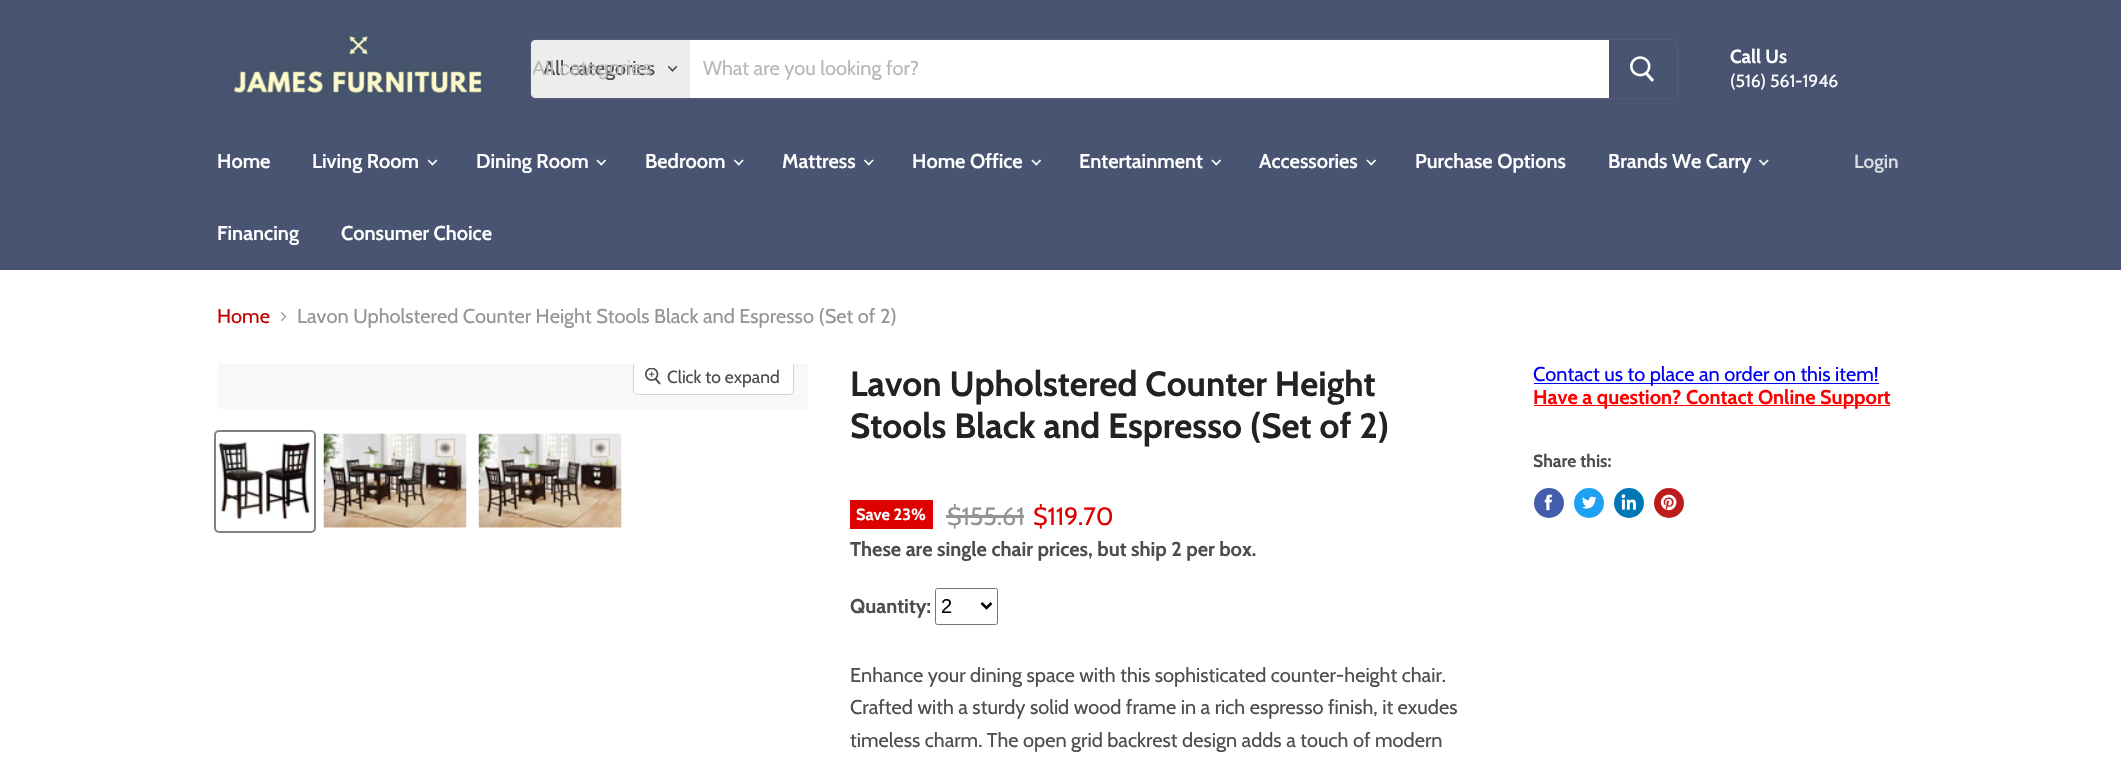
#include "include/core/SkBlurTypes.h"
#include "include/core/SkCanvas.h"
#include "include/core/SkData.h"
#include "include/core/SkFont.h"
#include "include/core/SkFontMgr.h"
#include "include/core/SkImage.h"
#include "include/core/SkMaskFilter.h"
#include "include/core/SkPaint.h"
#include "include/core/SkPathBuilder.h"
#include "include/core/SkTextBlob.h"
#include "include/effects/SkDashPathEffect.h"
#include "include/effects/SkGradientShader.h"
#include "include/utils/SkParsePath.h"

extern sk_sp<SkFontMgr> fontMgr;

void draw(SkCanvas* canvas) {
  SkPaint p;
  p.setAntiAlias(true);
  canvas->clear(SK_ColorWHITE);
  p.setColor(SkColorSetRGB(72, 84, 113));
  canvas->drawRect(SkRect::MakeLTRB(0, 0, 2121, 270), p);
  canvas->drawImageRect(SkImages::DeferredFromEncodedData(SkData::MakeFromFileName("images/1.png")), SkRect::MakeLTRB(231, 34, 485, 97), SkSamplingOptions());
  p.setStyle(SkPaint::kStroke_Style);
  p.setStrokeWidth(1);
  p.setColor(SkColorSetARGB(51, 128, 128, 128));
  canvas->drawRoundRect(SkRect::MakeLTRB(530.5f, 39.5f, 1677.5f, 98.5f), 4.5f, 4.5f, p);
  p.setStyle(SkPaint::kFill_Style);
  p.setColor(SkColorSetRGB(237, 237, 237));
  canvas->drawPath(SkPathBuilder().moveTo(535, 40).lineTo(690, 40).lineTo(690, 98).lineTo(535, 98).cubicTo(533, 98, 531, 96, 531, 94).lineTo(531, 44).cubicTo(531, 42, 533, 40, 535, 40).close().detach(), p);
  canvas->drawImageRect(SkImages::DeferredFromEncodedData(SkData::MakeFromFileName("images/2.png")), SkRect::MakeLTRB(668, 65, 678, 72), SkSamplingOptions());
  p.setColor(SK_ColorWHITE);
  canvas->drawRect(SkRect::MakeLTRB(690, 40, 1609, 98), p);
  canvas->drawImageRect(SkImages::DeferredFromEncodedData(SkData::MakeFromFileName("images/3.png")), SkRect::MakeLTRB(1630, 56, 1655, 82), SkSamplingOptions());
  canvas->drawImageRect(SkImages::DeferredFromEncodedData(SkData::MakeFromFileName("images/4.png")), SkRect::MakeLTRB(428, 159, 438, 166), SkSamplingOptions());
  canvas->drawImageRect(SkImages::DeferredFromEncodedData(SkData::MakeFromFileName("images/5.png")), SkRect::MakeLTRB(596, 159, 606, 166), SkSamplingOptions());
  canvas->drawImageRect(SkImages::DeferredFromEncodedData(SkData::MakeFromFileName("images/6.png")), SkRect::MakeLTRB(734, 159, 744, 166), SkSamplingOptions());
  canvas->drawImageRect(SkImages::DeferredFromEncodedData(SkData::MakeFromFileName("images/6.png")), SkRect::MakeLTRB(864, 159, 874, 166), SkSamplingOptions());
  canvas->drawImageRect(SkImages::DeferredFromEncodedData(SkData::MakeFromFileName("images/5.png")), SkRect::MakeLTRB(1031, 159, 1041, 166), SkSamplingOptions());
  canvas->drawImageRect(SkImages::DeferredFromEncodedData(SkData::MakeFromFileName("images/5.png")), SkRect::MakeLTRB(1211, 159, 1221, 166), SkSamplingOptions());
  canvas->drawImageRect(SkImages::DeferredFromEncodedData(SkData::MakeFromFileName("images/5.png")), SkRect::MakeLTRB(1366, 159, 1376, 166), SkSamplingOptions());
  canvas->drawImageRect(SkImages::DeferredFromEncodedData(SkData::MakeFromFileName("images/6.png")), SkRect::MakeLTRB(1759, 159, 1769, 166), SkSamplingOptions());
  canvas->drawImageRect(SkImages::DeferredFromEncodedData(SkData::MakeFromFileName("images/7.png")), SkRect::MakeLTRB(281, 312, 287, 322), SkSamplingOptions());
  p.setColor(SkColorSetRGB(248, 248, 248));
  canvas->drawRect(SkRect::MakeLTRB(218, 364, 808, 409), p);
  canvas->save();
  canvas->clipRect(SkRect::MakeLTRB(218, 364, 808, 409));
  p.setStyle(SkPaint::kStroke_Style);
  p.setColor(SkColorSetRGB(211, 211, 211));
  canvas->drawRoundRect(SkRect::MakeLTRB(633.5f, 358.5f, 793.5f, 394.5f), 4.5f, 4.5f, p);
  canvas->restore();
  p.setStyle(SkPaint::kFill_Style);
  p.setColor(SkColorSetARGB(230, 255, 255, 255));
  canvas->drawPath(SkPathBuilder().moveTo(634, 364).lineTo(793, 364).lineTo(793, 390).cubicTo(793, 392, 791, 394, 789, 394).lineTo(638, 394).cubicTo(636, 394, 634, 392, 634, 390).close().detach(), p);
  canvas->drawImageRect(SkImages::DeferredFromEncodedData(SkData::MakeFromFileName("images/8.png")), SkRect::MakeLTRB(645, 368, 661, 385), SkSamplingOptions());
  p.setStyle(SkPaint::kStroke_Style);
  p.setStrokeWidth(2);
  p.setColor(SkColorSetRGB(129, 129, 129));
  canvas->drawRoundRect(SkRect::MakeLTRB(215, 431, 315, 532), 4, 4, p);
  canvas->drawImageRect(SkImages::DeferredFromEncodedData(SkData::MakeFromFileName("images/9.png")), SkRect::MakeLTRB(218, 442, 311, 519), SkSamplingOptions());
  canvas->drawImageRect(SkImages::DeferredFromEncodedData(SkData::MakeFromFileName("images/10.png")), SkRect::MakeLTRB(323, 433, 467, 528), SkSamplingOptions());
  canvas->drawImageRect(SkImages::DeferredFromEncodedData(SkData::MakeFromFileName("images/11.png")), SkRect::MakeLTRB(478, 433, 622, 528), SkSamplingOptions());
  p.setStyle(SkPaint::kFill_Style);
  p.setColor(SkColorSetRGB(222, 1, 1));
  canvas->drawRect(SkRect::MakeLTRB(850, 500, 933, 529), p);
  p.setColor(SkColorSetRGB(148, 148, 148));
  canvas->drawRect(SkRect::MakeLTRB(946, 515, 1024, 518), p);
  p.setStyle(SkPaint::kStroke_Style);
  p.setStrokeWidth(1);
  p.setColor(SkColorSetRGB(118, 118, 118));
  canvas->drawRoundRect(SkRect::MakeLTRB(935.5f, 588.5f, 997.5f, 624.5f), 2, 2, p);
  p.setStrokeWidth(2.5f);
  p.setColor(SK_ColorBLACK);
  canvas->drawPath(SkPathBuilder().moveTo(981.5f, 603).lineTo(986.5f, 608).lineTo(991.5f, 603).detach(), p);
  p.setStyle(SkPaint::kFill_Style);
  p.setColor(SkColorSetRGB(0, 0, 238));
  canvas->drawRect(SkRect::MakeLTRB(1534, 383, 1879, 384), p);
  p.setColor(SkColorSetRGB(255, 0, 0));
  canvas->drawRect(SkRect::MakeLTRB(1534, 405, 1890, 406), p);
  p.setColor(SkColorSetRGB(66, 93, 171));
  canvas->drawCircle(1549, 503, 15, p);
  canvas->drawImageRect(SkImages::DeferredFromEncodedData(SkData::MakeFromFileName("images/12.png")), SkRect::MakeLTRB(1544, 494, 1552, 511), SkSamplingOptions());
  p.setColor(SkColorSetRGB(29, 161, 242));
  canvas->drawCircle(1589, 503, 15, p);
  canvas->drawImageRect(SkImages::DeferredFromEncodedData(SkData::MakeFromFileName("images/13.png")), SkRect::MakeLTRB(1582, 496, 1597, 509), SkSamplingOptions());
  p.setColor(SkColorSetRGB(0, 119, 181));
  canvas->drawCircle(1629, 503, 15, p);
  canvas->drawImageRect(SkImages::DeferredFromEncodedData(SkData::MakeFromFileName("images/14.png")), SkRect::MakeLTRB(1621, 494, 1636, 510), SkSamplingOptions());
  p.setColor(SkColorSetRGB(189, 28, 28));
  canvas->drawCircle(1669, 503, 15, p);
  canvas->drawImageRect(SkImages::DeferredFromEncodedData(SkData::MakeFromFileName("images/15.png")), SkRect::MakeLTRB(1660, 494, 1677, 511), SkSamplingOptions());
  SkFont font1(fontMgr->matchFamilyStyle("Cabin", SkFontStyle::Normal()), 20);
  font1.setSubpixel(true);
  p.setColor(SkColorSetRGB(77, 77, 77));
  canvas->drawString("All categories", 543, 75, font1, p);
  canvas->save();
  canvas->clipRect(SkRect::MakeLTRB(533, 58, 689, 80));
  SkFont font2(fontMgr->matchFamilyStyle("Liberation Sans", SkFontStyle::Normal()), 20);
  font2.setSubpixel(true);
  p.setColor(SkColorSetRGB(184, 184, 184));
  canvas->drawString("All categories", 532, 75, font2, p);
  canvas->restore();
  canvas->drawString("What are you looking for?", 703, 75, font1, p);
  SkFont font3(fontMgr->matchFamilyStyle("Cabin", SkFontStyle::Bold()), 19);
  font3.setSubpixel(true);
  p.setColor(SK_ColorWHITE);
  canvas->drawString("Call Us", 1730, 63, font3, p);
  SkFont font4(fontMgr->matchFamilyStyle("Cabin", SkFontStyle::Normal()), 17.5f);
  font4.setSubpixel(true);
  canvas->drawString("(516) 561-1946", 1730, 87, font4, p);
  SkFont font5(fontMgr->matchFamilyStyle("Cabin", SkFontStyle(600, SkFontStyle::kNormal_Width, SkFontStyle::kUpright_Slant)), 20);
  font5.setSubpixel(true);
  canvas->drawString("Home", 217, 168, font5, p);
  canvas->drawString("Living Room", 312, 168, font5, p);
  canvas->drawString("Dining Room", 476, 168, font5, p);
  canvas->drawString("Bedroom", 645, 168, font5, p);
  canvas->drawString("Mattress", 782, 168, font5, p);
  canvas->drawString("Home Office", 912, 168, font5, p);
  canvas->drawString("Entertainment", 1079, 168, font5, p);
  canvas->drawString("Accessories", 1259, 168, font5, p);
  canvas->drawString("Purchase Options", 1415, 168, font5, p);
  canvas->drawString("Brands We Carry", 1608, 168, font5, p);
  canvas->drawString("Financing", 217, 240, font5, p);
  canvas->drawString("Consumer Choice", 341, 240, font5, p);
  SkFont font6(fontMgr->matchFamilyStyle("Cabin", SkFontStyle(600, SkFontStyle::kNormal_Width, SkFontStyle::kUpright_Slant)), 19);
  font6.setSubpixel(true);
  p.setColor(SkColorSetRGB(218, 221, 227));
  canvas->drawString("Login", 1854, 168, font6, p);
  p.setColor(SkColorSetRGB(193, 0, 0));
  canvas->drawString("Home", 217, 323, font1, p);
  p.setColor(SkColorSetRGB(148, 148, 148));
  canvas->drawString("Lavon Upholstered Counter Height Stools Black and Espresso (Set of 2)", 297, 323, font1, p);
  p.setColor(SkColorSetRGB(77, 77, 77));
  canvas->drawString("Click to expand", 667, 383, font4, p);
  SkFont font7(fontMgr->matchFamilyStyle("Cabin", SkFontStyle::Bold()), 35);
  font7.setSubpixel(true);
  p.setColor(SkColorSetRGB(34, 34, 34));
  canvas->drawString("Lavon Upholstered Counter Height", 850, 396, font7, p);
  canvas->drawString("Stools Black and Espresso (Set of 2)", 850, 438, font7, p);
  SkFont font8(fontMgr->matchFamilyStyle("Cabin", SkFontStyle::Bold()), 16.25f);
  font8.setSubpixel(true);
  p.setColor(SK_ColorWHITE);
  canvas->drawString("Save 23%", 856, 520, font8, p);
  SkFont font9(fontMgr->matchFamilyStyle("Cabin", SkFontStyle::Normal()), 25);
  font9.setSubpixel(true);
  p.setColor(SkColorSetRGB(148, 148, 148));
  canvas->drawString("$155.61", 947, 525, font9, p);
  p.setColor(SkColorSetRGB(222, 1, 1));
  canvas->drawString("$119.70", 1033, 525, font9, p);
  SkFont font10(fontMgr->matchFamilyStyle("Cabin", SkFontStyle::Bold()), 20);
  font10.setSubpixel(true);
  p.setColor(SkColorSetRGB(77, 77, 77));
  canvas->drawString("These are single chair prices, but ship 2 per box.", 850, 556, font10, p);
  canvas->drawString("Quantity:", 850, 613, font10, p);
  p.setColor(SK_ColorBLACK);
  canvas->drawString("2", 941, 613, font2, p);
  p.setColor(SkColorSetRGB(77, 77, 77));
  canvas->drawString("Enhance your dining space with this sophisticated counter-height chair.", 850, 682, font1, p);
  canvas->drawString("Crafted with a sturdy solid wood frame in a rich espresso finish, it exudes", 850, 714, font1, p);
  canvas->drawString("timeless charm. The open grid backrest design adds a touch of modern", 850, 747, font1, p);
  p.setColor(SkColorSetRGB(0, 0, 238));
  canvas->drawString("Contact us to place an order on this item!", 1533, 381, font1, p);
  p.setColor(SkColorSetRGB(255, 0, 0));
  canvas->drawString("Have a question? Contact Online Support", 1533, 404, font10, p);
  SkFont font11(fontMgr->matchFamilyStyle("Cabin", SkFontStyle::Bold()), 17.5f);
  font11.setSubpixel(true);
  p.setColor(SkColorSetRGB(77, 77, 77));
  canvas->drawString("Share this:", 1533, 467, font11, p);
}
